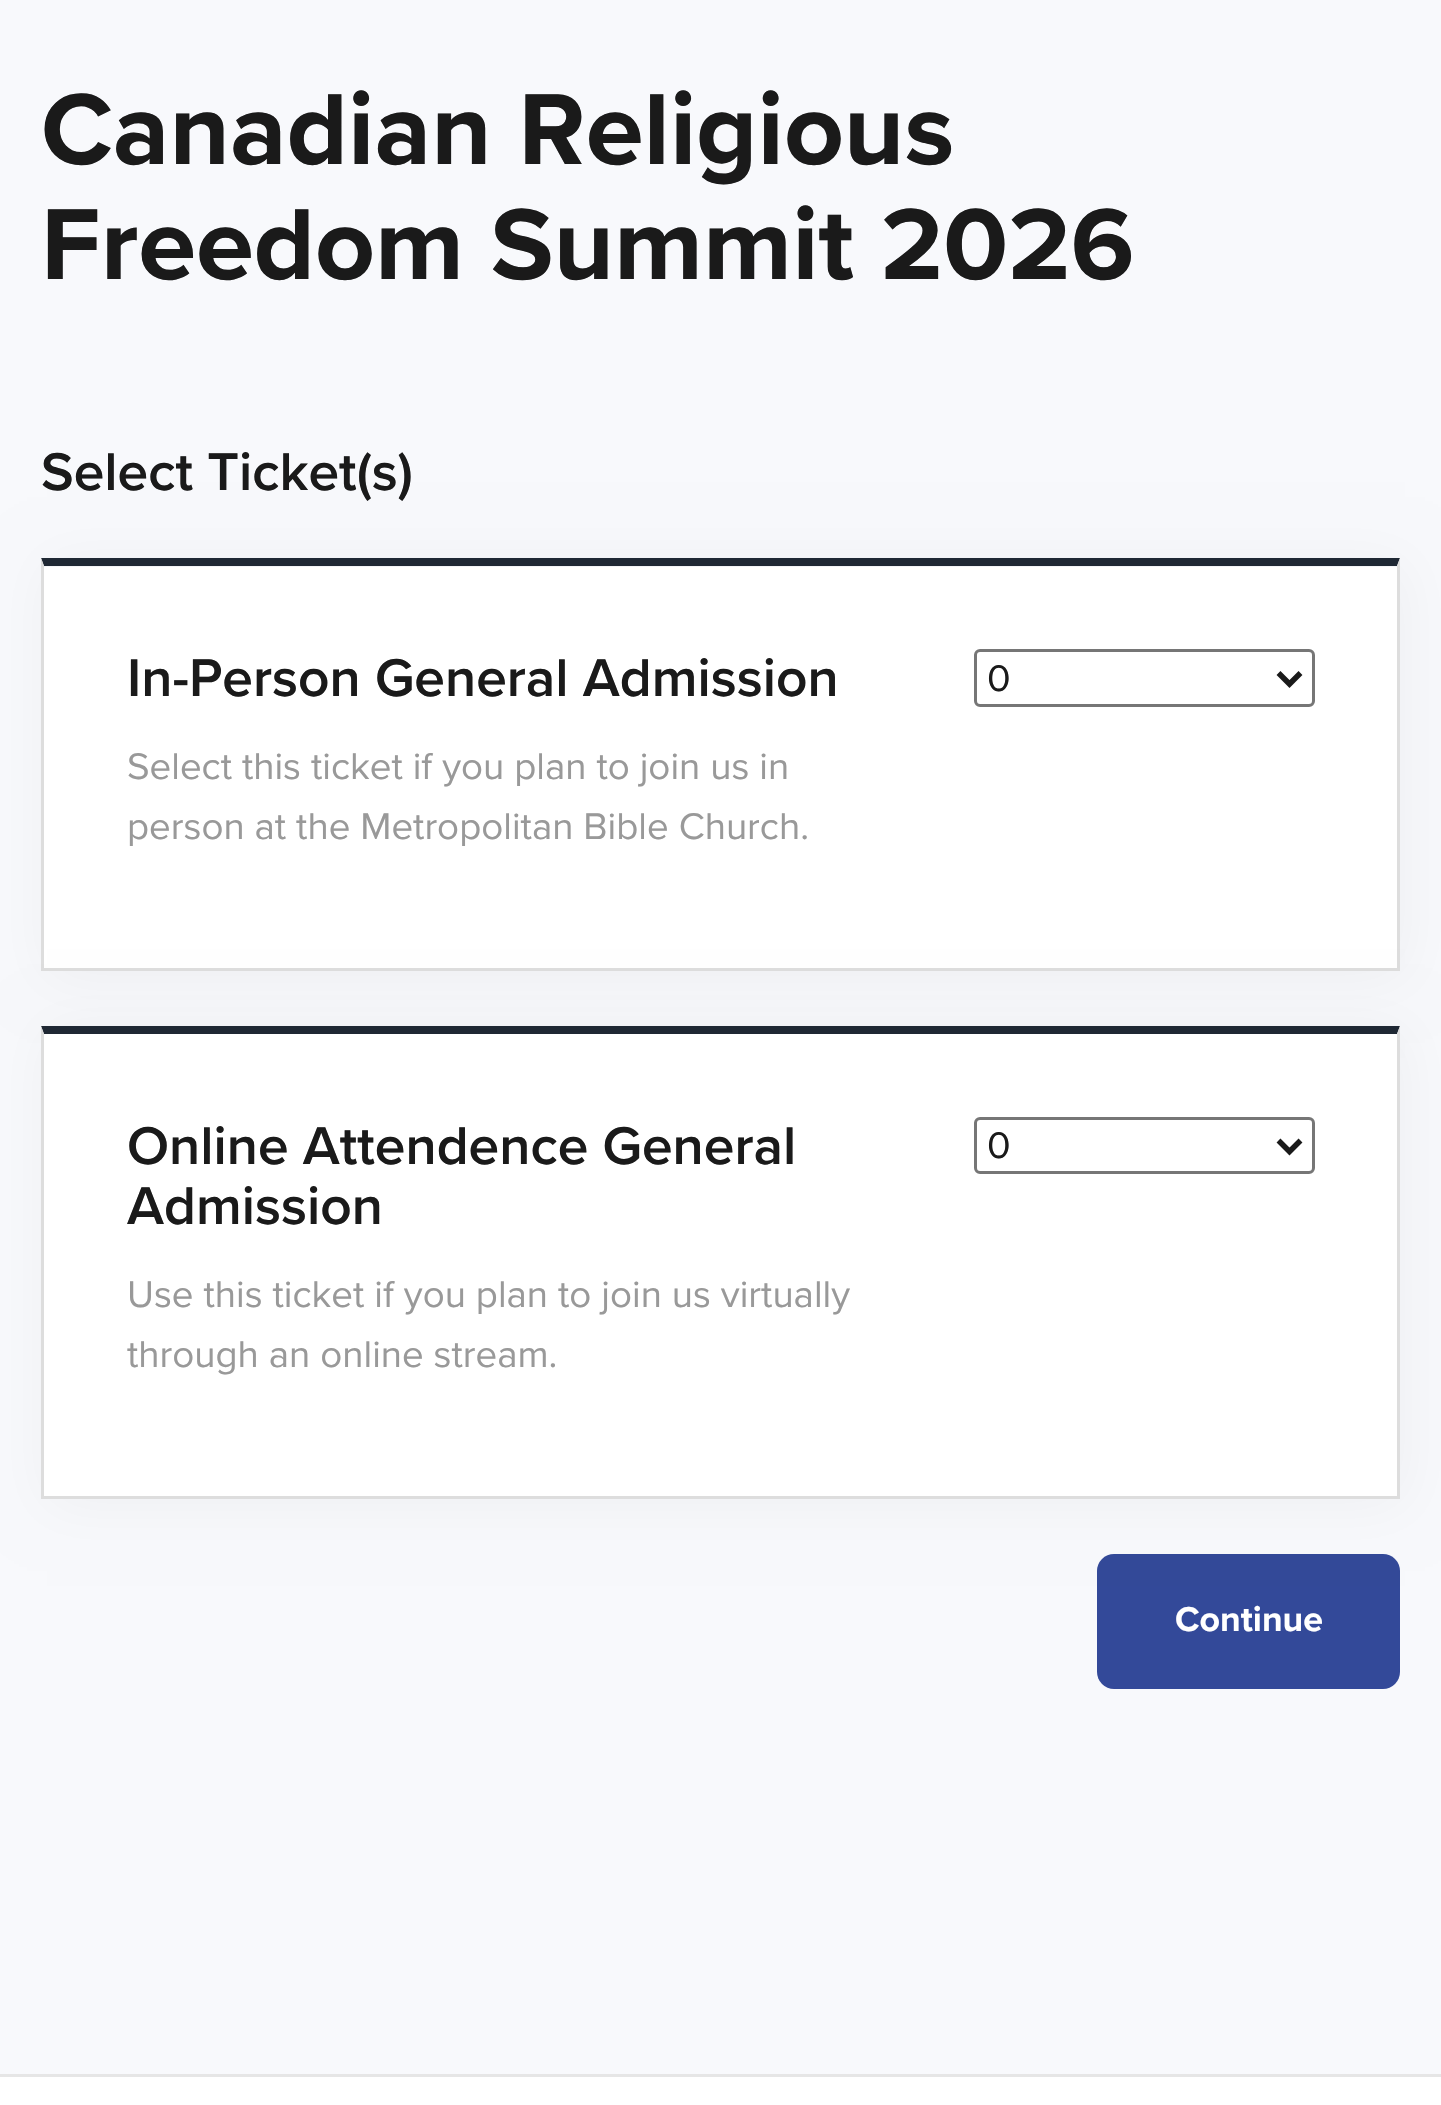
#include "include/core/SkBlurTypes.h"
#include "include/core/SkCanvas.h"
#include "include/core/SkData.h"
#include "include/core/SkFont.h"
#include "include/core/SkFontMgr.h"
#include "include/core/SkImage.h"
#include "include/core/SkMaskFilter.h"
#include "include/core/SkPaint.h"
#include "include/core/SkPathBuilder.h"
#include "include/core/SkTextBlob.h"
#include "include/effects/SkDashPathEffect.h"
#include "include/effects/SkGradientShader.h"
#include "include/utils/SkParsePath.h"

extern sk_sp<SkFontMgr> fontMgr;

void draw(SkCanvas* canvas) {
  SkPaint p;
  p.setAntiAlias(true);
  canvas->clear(SkColorSetRGB(248, 249, 252));
  p.setColor(SkColorSetARGB(10, 0, 0, 0));
  p.setMaskFilter(SkMaskFilter::MakeBlur(kNormal_SkBlurStyle, 27.5f));
  canvas->drawRect(SkRect::MakeLTRB(47, 564, 1405, 976), p);
  p.setMaskFilter(nullptr);
  p.setColor(SK_ColorWHITE);
  canvas->drawRect(SkRect::MakeLTRB(44, 567, 1397, 968), p);
  p.setColor(SkColorSetRGB(31, 40, 52));
  canvas->drawPath(SkPathBuilder().moveTo(41, 558).lineTo(1400, 558).lineTo(1397, 566).lineTo(44, 566).close().detach(), p);
  p.setColor(SkColorSetRGB(221, 221, 221));
  canvas->drawPath(SkPathBuilder().moveTo(1400, 558).lineTo(1400, 971).lineTo(1397, 968).lineTo(1397, 566).close().detach(), p);
  canvas->drawRect(SkRect::MakeLTRB(41, 968, 1400, 971), p);
  canvas->drawPath(SkPathBuilder().moveTo(41, 971).lineTo(41, 558).lineTo(44, 566).lineTo(44, 968).close().detach(), p);
  p.setStyle(SkPaint::kStroke_Style);
  p.setStrokeWidth(3);
  p.setColor(SkColorSetRGB(118, 118, 118));
  canvas->drawRoundRect(SkRect::MakeLTRB(975.5f, 650.5f, 1313.5f, 705.5f), 4.5f, 4.5f, p);
  p.setStrokeWidth(5.5f);
  p.setColor(SkColorSetRGB(26, 26, 26));
  canvas->drawPath(SkPathBuilder().moveTo(1278.5f, 673).lineTo(1289.5f, 684).lineTo(1300.5f, 673).detach(), p);
  p.setStyle(SkPaint::kFill_Style);
  p.setColor(SkColorSetRGB(51, 73, 153));
  canvas->drawRoundRect(SkRect::MakeLTRB(1097, 1554, 1400, 1689), 17, 17, p);
  p.setColor(SkColorSetARGB(10, 0, 0, 0));
  p.setMaskFilter(SkMaskFilter::MakeBlur(kNormal_SkBlurStyle, 27.5f));
  canvas->drawRect(SkRect::MakeLTRB(47, 1031, 1405, 1504), p);
  p.setMaskFilter(nullptr);
  p.setColor(SK_ColorWHITE);
  canvas->drawRect(SkRect::MakeLTRB(44, 1034, 1397, 1496), p);
  p.setColor(SkColorSetRGB(31, 40, 52));
  canvas->drawPath(SkPathBuilder().moveTo(41, 1026).lineTo(1400, 1026).lineTo(1397, 1034).lineTo(44, 1034).close().detach(), p);
  p.setColor(SkColorSetRGB(221, 221, 221));
  canvas->drawPath(SkPathBuilder().moveTo(1400, 1026).lineTo(1400, 1499).lineTo(1397, 1496).lineTo(1397, 1034).close().detach(), p);
  canvas->drawRect(SkRect::MakeLTRB(41, 1496, 1400, 1499), p);
  canvas->drawPath(SkPathBuilder().moveTo(41, 1499).lineTo(41, 1026).lineTo(44, 1034).lineTo(44, 1496).close().detach(), p);
  p.setStyle(SkPaint::kStroke_Style);
  p.setStrokeWidth(3);
  p.setColor(SkColorSetRGB(118, 118, 118));
  canvas->drawRoundRect(SkRect::MakeLTRB(975.5f, 1118.5f, 1313.5f, 1172.5f), 4.5f, 4.5f, p);
  p.setStrokeWidth(5.5f);
  p.setColor(SkColorSetRGB(26, 26, 26));
  canvas->drawPath(SkPathBuilder().moveTo(1278.5f, 1140.5f).lineTo(1289.5f, 1151.5f).lineTo(1300.5f, 1140.5f).detach(), p);
  p.setStyle(SkPaint::kFill_Style);
  p.setColor(SK_ColorWHITE);
  canvas->drawRect(SkRect::MakeLTRB(0, 2077, 1441, 2105), p);
  p.setColor(SkColorSetRGB(230, 230, 230));
  canvas->drawRect(SkRect::MakeLTRB(0, 2074, 1441, 2077), p);
  SkFont font1(fontMgr->matchFamilyStyle("Proxima Nova", SkFontStyle::Bold()), 104.5f);
  font1.setSubpixel(true);
  p.setColor(SkColorSetRGB(26, 26, 26));
  canvas->drawString("Canadian Religious", 41, 164, font1, p);
  canvas->drawString("Freedom Summit 2026", 41, 279, font1, p);
  SkFont font2(fontMgr->matchFamilyStyle("Proxima Nova", SkFontStyle(600, SkFontStyle::kNormal_Width, SkFontStyle::kUpright_Slant)), 55);
  font2.setSubpixel(true);
  canvas->drawString("Select Ticket(s)", 41, 490, font2, p);
  canvas->drawString("In-Person General Admission", 127, 696, font2, p);
  SkFont font3(fontMgr->matchFamilyStyle("Proxima Nova", SkFontStyle::Normal()), 38.5f);
  font3.setSubpixel(true);
  p.setColor(SkColorSetRGB(153, 153, 153));
  canvas->drawString("Select this ticket if you plan to join us in", 127, 779, font3, p);
  canvas->drawString("person at the Metropolitan Bible Church.", 127, 839, font3, p);
  p.setColor(SkColorSetRGB(26, 26, 26));
  canvas->drawString("0", 987, 691, font3, p);
  canvas->drawString("Online Attendence General", 127, 1164, font2, p);
  canvas->drawString("Admission", 127, 1224, font2, p);
  p.setColor(SkColorSetRGB(153, 153, 153));
  canvas->drawString("Use this ticket if you plan to join us virtually", 127, 1307, font3, p);
  canvas->drawString("through an online stream.", 127, 1367, font3, p);
  p.setColor(SkColorSetRGB(26, 26, 26));
  canvas->drawString("0", 987, 1158, font3, p);
  SkFont font4(fontMgr->matchFamilyStyle("Proxima Nova", SkFontStyle::Bold()), 35.75f);
  font4.setSubpixel(true);
  p.setColor(SK_ColorWHITE);
  canvas->drawString("Continue", 1175, 1631, font4, p);
}
